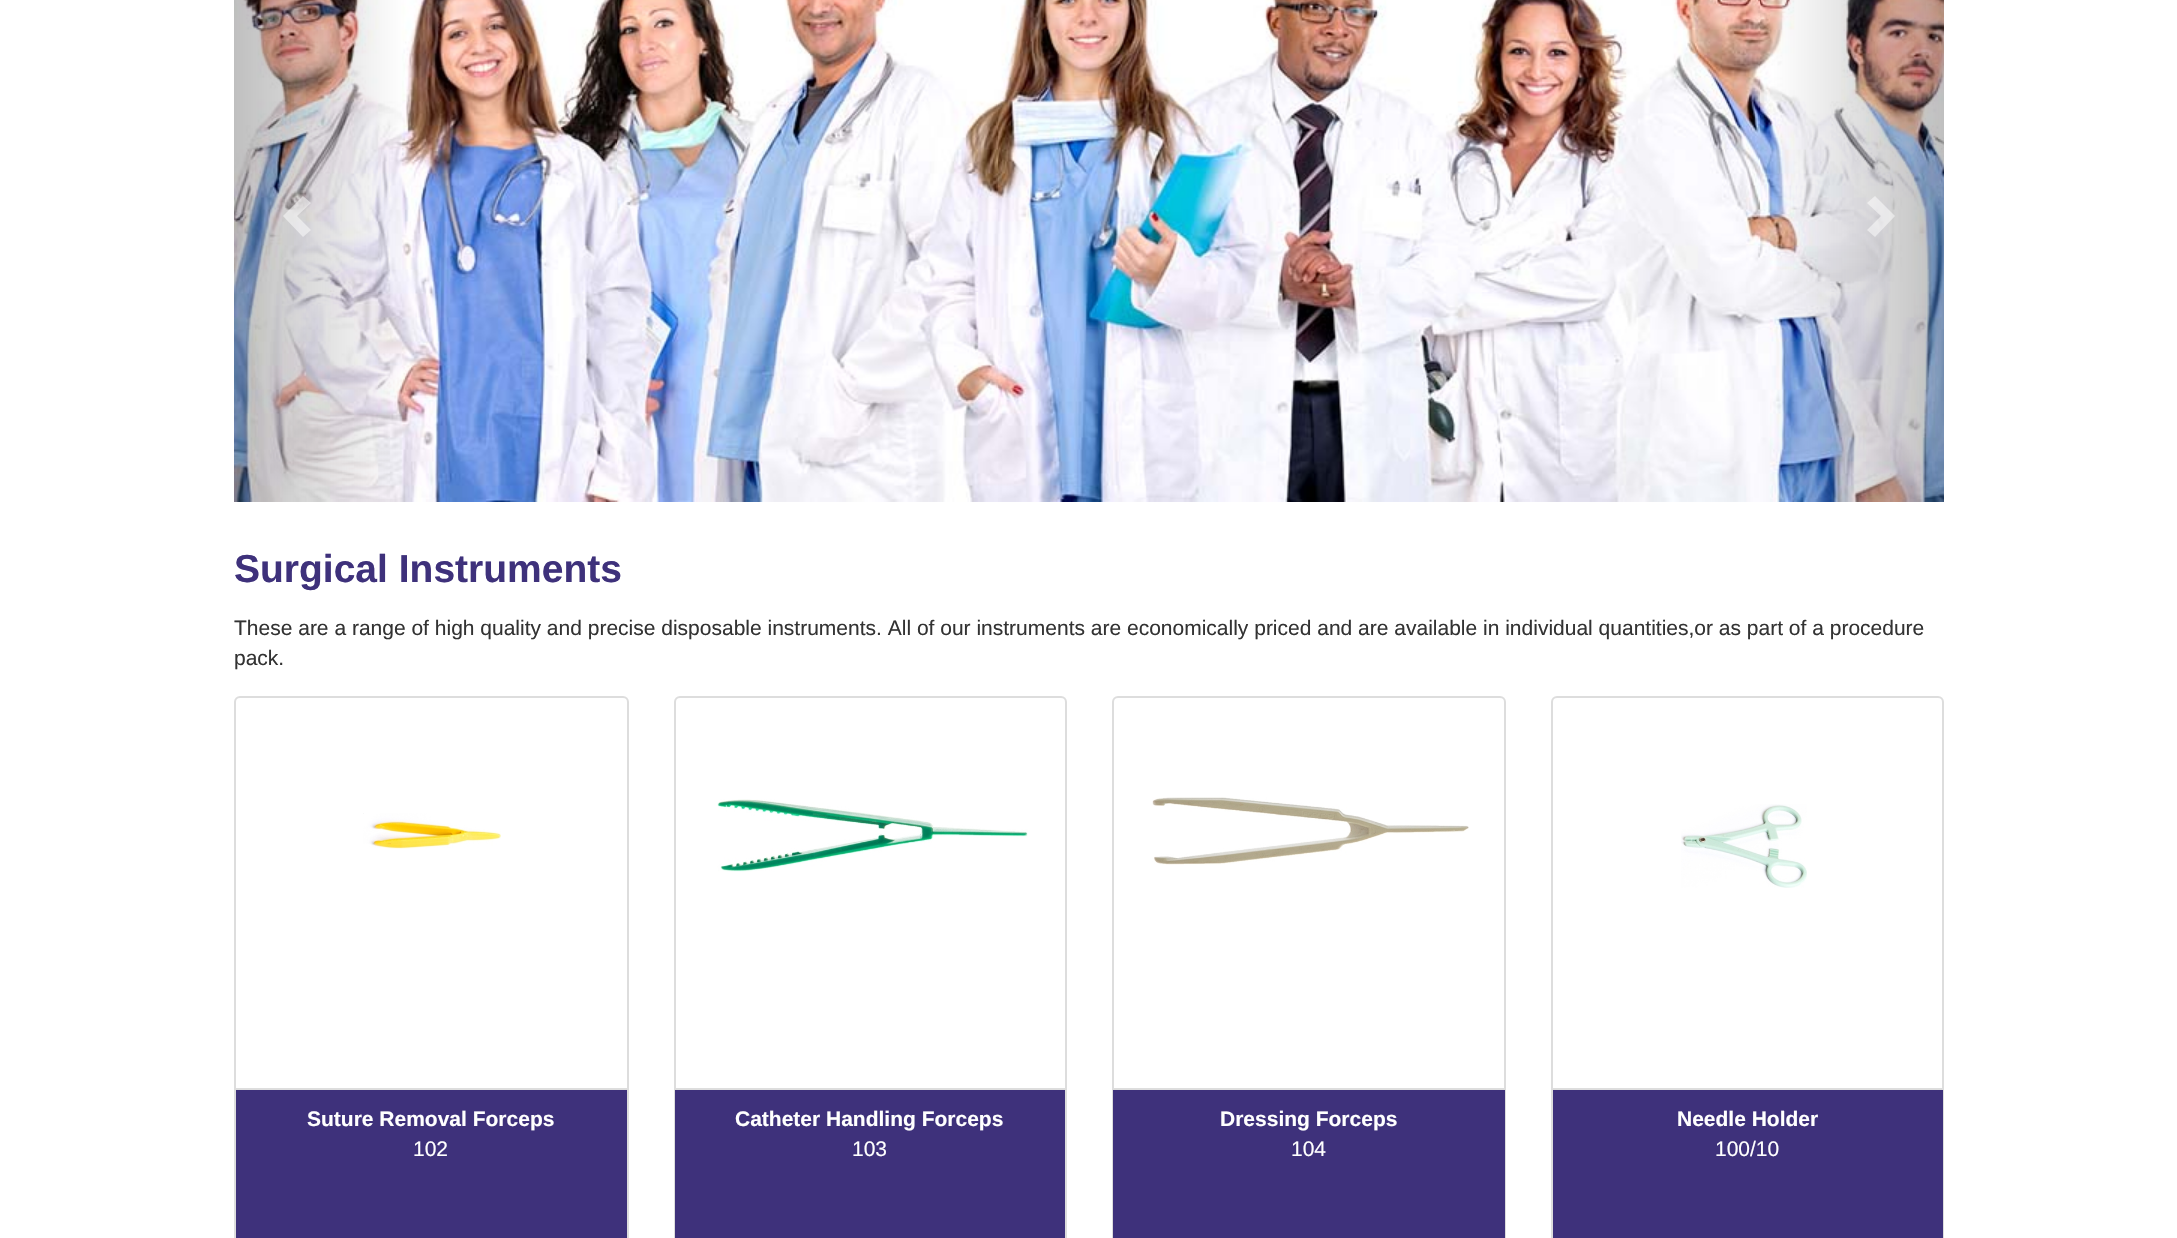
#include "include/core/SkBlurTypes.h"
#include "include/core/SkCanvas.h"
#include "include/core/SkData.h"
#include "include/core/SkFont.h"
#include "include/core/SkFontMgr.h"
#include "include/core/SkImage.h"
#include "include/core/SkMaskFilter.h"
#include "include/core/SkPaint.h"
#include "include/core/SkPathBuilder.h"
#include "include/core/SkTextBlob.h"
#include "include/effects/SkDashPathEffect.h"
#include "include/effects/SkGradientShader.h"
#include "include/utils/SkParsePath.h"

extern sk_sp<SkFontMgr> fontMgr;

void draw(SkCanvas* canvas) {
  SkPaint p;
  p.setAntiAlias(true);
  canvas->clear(SK_ColorWHITE);
  canvas->drawImageRect(SkImages::DeferredFromEncodedData(SkData::MakeFromFileName("images/1.png")), SkRect::MakeLTRB(234, 0, 1944, 502), SkSamplingOptions());
  p.setColor(SkColorSetARGB(128, 255, 255, 255));
  canvas->drawPath(SkPathBuilder().moveTo(311, 203).lineTo(297, 216).lineTo(311, 230).lineTo(303, 237).lineTo(283, 216).lineTo(303, 196).close().detach(), p);
  canvas->drawPath(SkPathBuilder().moveTo(1895, 216).lineTo(1875, 237).lineTo(1867, 230).lineTo(1881, 216).lineTo(1867, 203).lineTo(1875, 196).close().detach(), p);
  p.setStyle(SkPaint::kStroke_Style);
  p.setStrokeWidth(2);
  p.setColor(SkColorSetRGB(221, 221, 221));
  canvas->drawRoundRect(SkRect::MakeLTRB(235, 697, 628, 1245), 5, 5, p);
  canvas->drawImageRect(SkImages::DeferredFromEncodedData(SkData::MakeFromFileName("images/2.png")), SkRect::MakeLTRB(363, 813, 501, 849), SkSamplingOptions());
  p.setStyle(SkPaint::kFill_Style);
  p.setColor(SkColorSetRGB(62, 49, 123));
  canvas->drawRect(SkRect::MakeLTRB(236, 1090, 627, 1238), p);
  p.setColor(SkColorSetRGB(221, 221, 221));
  canvas->drawRect(SkRect::MakeLTRB(236, 1088, 627, 1090), p);
  p.setStyle(SkPaint::kStroke_Style);
  canvas->drawRoundRect(SkRect::MakeLTRB(675, 697, 1066, 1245), 5, 5, p);
  canvas->drawImageRect(SkImages::DeferredFromEncodedData(SkData::MakeFromFileName("images/3.png")), SkRect::MakeLTRB(717, 799, 1028, 872), SkSamplingOptions());
  p.setStyle(SkPaint::kFill_Style);
  p.setColor(SkColorSetRGB(62, 49, 123));
  canvas->drawRect(SkRect::MakeLTRB(675, 1090, 1065, 1238), p);
  p.setColor(SkColorSetRGB(221, 221, 221));
  canvas->drawRect(SkRect::MakeLTRB(675, 1088, 1065, 1090), p);
  p.setStyle(SkPaint::kStroke_Style);
  canvas->drawRoundRect(SkRect::MakeLTRB(1113, 697, 1505, 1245), 5, 5, p);
  canvas->drawImageRect(SkImages::DeferredFromEncodedData(SkData::MakeFromFileName("images/4.png")), SkRect::MakeLTRB(1152, 797, 1469, 865), SkSamplingOptions());
  p.setStyle(SkPaint::kFill_Style);
  p.setColor(SkColorSetRGB(62, 49, 123));
  canvas->drawRect(SkRect::MakeLTRB(1113, 1090, 1505, 1238), p);
  p.setColor(SkColorSetRGB(221, 221, 221));
  canvas->drawRect(SkRect::MakeLTRB(1113, 1088, 1505, 1090), p);
  p.setStyle(SkPaint::kStroke_Style);
  canvas->drawRoundRect(SkRect::MakeLTRB(1552, 697, 1943, 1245), 5, 5, p);
  canvas->drawImageRect(SkImages::DeferredFromEncodedData(SkData::MakeFromFileName("images/5.png")), SkRect::MakeLTRB(1681, 804, 1807, 888), SkSamplingOptions());
  p.setStyle(SkPaint::kFill_Style);
  p.setColor(SkColorSetRGB(62, 49, 123));
  canvas->drawRect(SkRect::MakeLTRB(1553, 1090, 1943, 1238), p);
  p.setColor(SkColorSetRGB(221, 221, 221));
  canvas->drawRect(SkRect::MakeLTRB(1553, 1088, 1943, 1090), p);
  SkFont font1(fontMgr->matchFamilyStyle("Liberation Sans", SkFontStyle::Bold()), 39);
  font1.setSubpixel(true);
  p.setColor(SkColorSetRGB(62, 49, 123));
  canvas->drawString("Surgical Instruments", 234, 582, font1, p);
  SkFont font2(fontMgr->matchFamilyStyle("Liberation Sans", SkFontStyle::Normal()), 21);
  font2.setSubpixel(true);
  p.setColor(SkColorSetRGB(51, 51, 51));
  canvas->drawString("These are a range of high quality and precise disposable instruments. All of our instruments are economically priced and are available in individual quantities,or as part of a procedure", 234, 635, font2, p);
  canvas->drawString("pack.", 234, 665, font2, p);
  SkFont font3(fontMgr->matchFamilyStyle("Liberation Sans", SkFontStyle::Bold()), 21);
  font3.setSubpixel(true);
  p.setColor(SK_ColorWHITE);
  canvas->drawString("Suture Removal Forceps", 307, 1126, font3, p);
  canvas->drawString("102", 413, 1156, font2, p);
  canvas->drawString("Catheter Handling Forceps", 735, 1126, font3, p);
  canvas->drawString("103", 852, 1156, font2, p);
  canvas->drawString("Dressing Forceps", 1220, 1126, font3, p);
  canvas->drawString("104", 1291, 1156, font2, p);
  canvas->drawString("Needle Holder", 1677, 1126, font3, p);
  canvas->drawString("100/10", 1715, 1156, font2, p);
}
